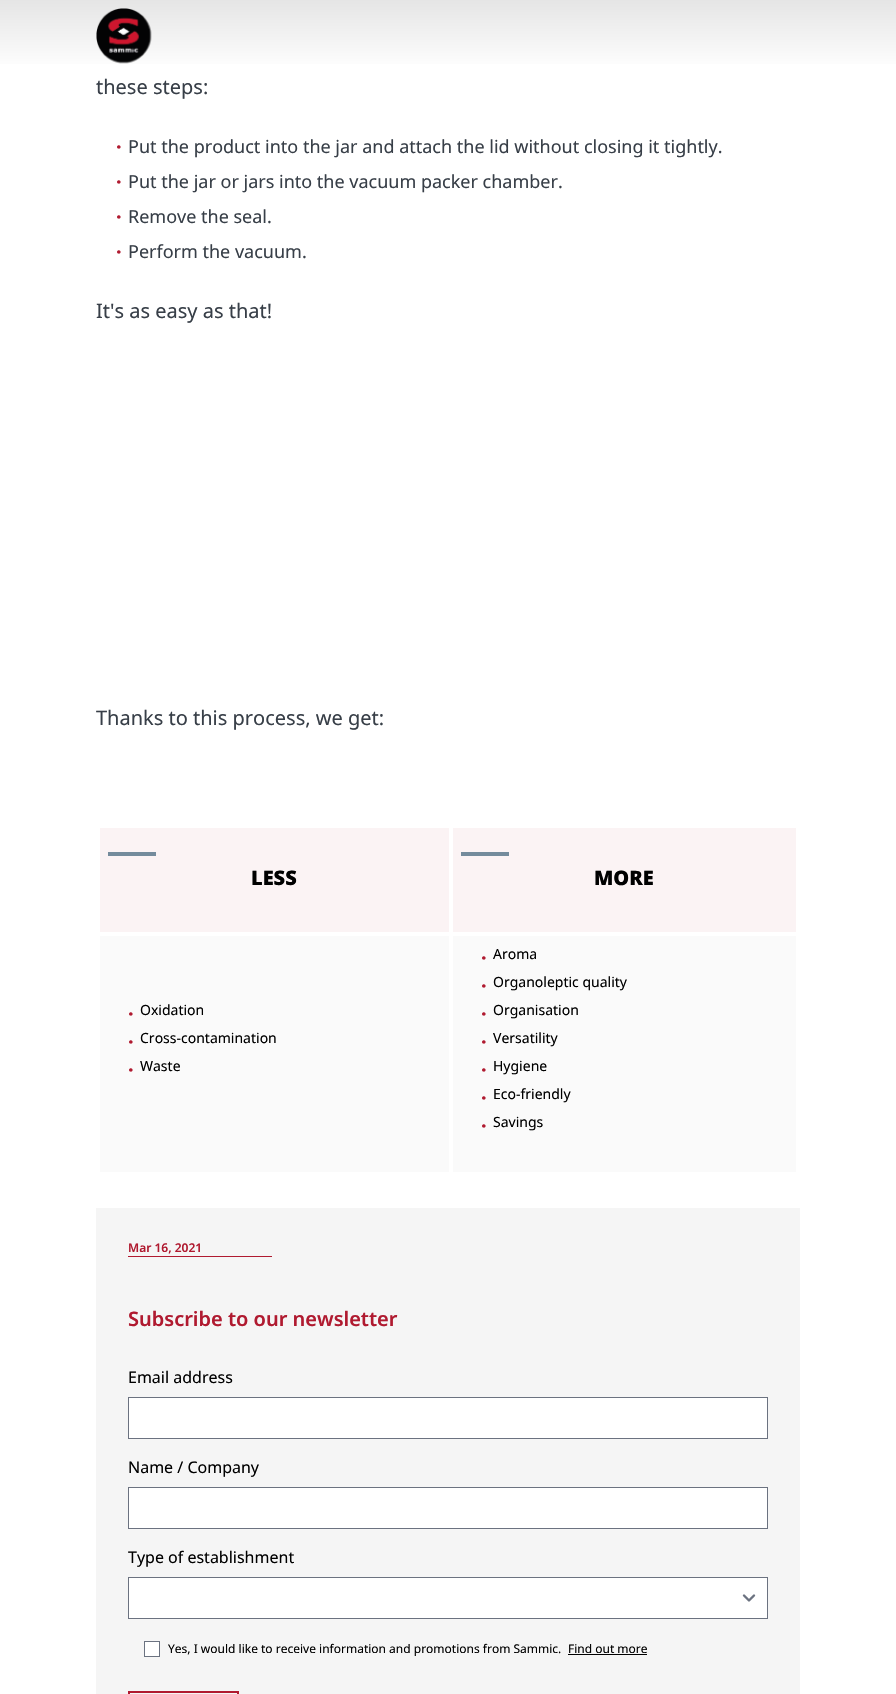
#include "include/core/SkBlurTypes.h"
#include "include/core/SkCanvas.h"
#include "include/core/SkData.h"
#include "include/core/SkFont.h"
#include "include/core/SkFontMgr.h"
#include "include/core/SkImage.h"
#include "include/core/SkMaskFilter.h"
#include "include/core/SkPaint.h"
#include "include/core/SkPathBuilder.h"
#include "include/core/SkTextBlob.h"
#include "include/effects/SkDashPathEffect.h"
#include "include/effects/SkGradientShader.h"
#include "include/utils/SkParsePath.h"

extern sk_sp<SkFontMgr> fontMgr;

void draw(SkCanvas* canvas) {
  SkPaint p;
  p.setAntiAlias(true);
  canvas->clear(SK_ColorWHITE);
  {
    const SkColor colors[] = {SkColorSetRGB(229, 229, 229), SK_ColorWHITE};
    const float stops[] = {0, 1};
    const SkPoint ends[] = {{448, 0}, {448, 71}};
    p.setShader(SkGradientShader::MakeLinear(ends, colors, stops, 2, SkTileMode::kClamp));
    p.setAlpha(255);
  }
  canvas->drawRect(SkRect::MakeLTRB(0, 0, 896, 64), p);
  canvas->drawImageRect(SkImages::DeferredFromEncodedData(SkData::MakeFromFileName("images/1.png")), SkRect::MakeLTRB(96, 8, 152, 64), SkSamplingOptions());
  p.setShader(nullptr);
  p.setColor(SkColorSetRGB(251, 243, 244));
  canvas->drawRect(SkRect::MakeLTRB(100, 828, 449, 932), p);
  p.setColor(SkColorSetRGB(116, 139, 156));
  canvas->drawRect(SkRect::MakeLTRB(108, 852, 156, 856), p);
  p.setColor(SkColorSetRGB(251, 243, 244));
  canvas->drawRect(SkRect::MakeLTRB(453, 828, 796, 932), p);
  p.setColor(SkColorSetRGB(116, 139, 156));
  canvas->drawRect(SkRect::MakeLTRB(461, 852, 509, 856), p);
  p.setColor(SkColorSetRGB(250, 250, 250));
  canvas->drawRect(SkRect::MakeLTRB(100, 936, 449, 1172), p);
  canvas->drawRect(SkRect::MakeLTRB(453, 936, 796, 1172), p);
  p.setColor(SkColorSetRGB(245, 245, 245));
  canvas->drawRect(SkRect::MakeLTRB(96, 1208, 800, 1694), p);
  p.setColor(SkColorSetRGB(176, 26, 48));
  canvas->drawRect(SkRect::MakeLTRB(128, 1256, 272, 1257), p);
  p.setColor(SK_ColorWHITE);
  canvas->drawRect(SkRect::MakeLTRB(128.5f, 1397.5f, 767.5f, 1438.5f), p);
  p.setStyle(SkPaint::kStroke_Style);
  p.setStrokeWidth(1);
  p.setColor(SkColorSetRGB(107, 114, 128));
  canvas->drawRect(SkRect::MakeLTRB(128.5f, 1397.5f, 767.5f, 1438.5f), p);
  p.setStyle(SkPaint::kFill_Style);
  p.setColor(SK_ColorWHITE);
  canvas->drawRect(SkRect::MakeLTRB(128.5f, 1487.5f, 767.5f, 1528.5f), p);
  p.setStyle(SkPaint::kStroke_Style);
  p.setColor(SkColorSetRGB(107, 114, 128));
  canvas->drawRect(SkRect::MakeLTRB(128.5f, 1487.5f, 767.5f, 1528.5f), p);
  p.setStyle(SkPaint::kFill_Style);
  p.setColor(SK_ColorWHITE);
  canvas->drawRect(SkRect::MakeLTRB(129, 1578, 767, 1618), p);
  p.setStyle(SkPaint::kStroke_Style);
  p.setStrokeWidth(2.4f);
  p.setStrokeCap(SkPaint::kRound_Cap);
  p.setStrokeJoin(SkPaint::kRound_Join);
  p.setColor(SkColorSetRGB(107, 114, 128));
  canvas->drawPath(SkPathBuilder().moveTo(744, 1595.5f).lineTo(749, 1600.5f).lineTo(754, 1595.5f).detach(), p);
  p.setStrokeWidth(1);
  p.setStrokeCap(SkPaint::kButt_Cap);
  p.setStrokeJoin(SkPaint::kMiter_Join);
  canvas->drawRect(SkRect::MakeLTRB(128.5f, 1577.5f, 767.5f, 1618.5f), p);
  p.setStyle(SkPaint::kFill_Style);
  p.setColor(SK_ColorWHITE);
  canvas->drawRect(SkRect::MakeLTRB(144.5f, 1641.5f, 159.5f, 1656.5f), p);
  p.setStyle(SkPaint::kStroke_Style);
  p.setColor(SkColorSetRGB(107, 114, 128));
  canvas->drawRect(SkRect::MakeLTRB(144.5f, 1641.5f, 159.5f, 1656.5f), p);
  p.setStyle(SkPaint::kFill_Style);
  p.setColor(SK_ColorBLACK);
  canvas->drawRect(SkRect::MakeLTRB(568, 1654, 647, 1655), p);
  p.setStyle(SkPaint::kStroke_Style);
  p.setStrokeWidth(2);
  p.setColor(SkColorSetRGB(176, 26, 48));
  canvas->drawRect(SkRect::MakeLTRB(129, 1692, 238, 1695), p);
  SkFont font1(fontMgr->matchFamilyStyle("Noto Sans", SkFontStyle::Normal()), 20);
  font1.setSubpixel(true);
  p.setStyle(SkPaint::kFill_Style);
  p.setColor(SkColorSetRGB(56, 63, 72));
  canvas->drawString("these steps:", 96, 94, font1, p);
  SkFont font2(fontMgr->matchFamilyStyle("Noto Sans", SkFontStyle::Bold()), 20);
  font2.setSubpixel(true);
  p.setColor(SkColorSetRGB(176, 26, 48));
  canvas->drawString("·", 116, 154, font2, p);
  SkFont font3(fontMgr->matchFamilyStyle("Noto Sans", SkFontStyle::Normal()), 18);
  font3.setSubpixel(true);
  p.setColor(SkColorSetRGB(56, 63, 72));
  canvas->drawString("Put the product into the jar and attach the lid without closing it tightly.", 128, 153, font3, p);
  p.setColor(SkColorSetRGB(176, 26, 48));
  canvas->drawString("·", 116, 189, font2, p);
  p.setColor(SkColorSetRGB(56, 63, 72));
  canvas->drawString("Put the jar or jars into the vacuum packer chamber.", 128, 188, font3, p);
  p.setColor(SkColorSetRGB(176, 26, 48));
  canvas->drawString("·", 116, 224, font2, p);
  p.setColor(SkColorSetRGB(56, 63, 72));
  canvas->drawString("Remove the seal.", 128, 223, font3, p);
  p.setColor(SkColorSetRGB(176, 26, 48));
  canvas->drawString("·", 116, 259, font2, p);
  p.setColor(SkColorSetRGB(56, 63, 72));
  canvas->drawString("Perform the vacuum.", 128, 258, font3, p);
  canvas->drawString("It's as easy as that!", 96, 318, font1, p);
  canvas->drawString("Thanks to this process, we get:", 96, 725, font1, p);
  SkFont font4(fontMgr->matchFamilyStyle("Noto Sans", SkFontStyle(900, SkFontStyle::kNormal_Width, SkFontStyle::kUpright_Slant)), 20);
  font4.setSubpixel(true);
  p.setColor(SK_ColorBLACK);
  canvas->drawString("LESS", 251, 885, font4, p);
  canvas->drawString("MORE", 594, 885, font4, p);
  p.setColor(SkColorSetRGB(176, 26, 48));
  canvas->drawString("·", 128, 1021, font2, p);
  SkFont font5(fontMgr->matchFamilyStyle("Noto Sans", SkFontStyle::Normal()), 14);
  font5.setSubpixel(true);
  p.setColor(SK_ColorBLACK);
  canvas->drawString("Oxidation", 140, 1015, font5, p);
  p.setColor(SkColorSetRGB(176, 26, 48));
  canvas->drawString("·", 128, 1049, font2, p);
  p.setColor(SK_ColorBLACK);
  canvas->drawString("Cross-contamination", 140, 1043, font5, p);
  p.setColor(SkColorSetRGB(176, 26, 48));
  canvas->drawString("·", 128, 1077, font2, p);
  p.setColor(SK_ColorBLACK);
  canvas->drawString("Waste", 140, 1071, font5, p);
  p.setColor(SkColorSetRGB(176, 26, 48));
  canvas->drawString("·", 481, 965, font2, p);
  p.setColor(SK_ColorBLACK);
  canvas->drawString("Aroma", 493, 959, font5, p);
  p.setColor(SkColorSetRGB(176, 26, 48));
  canvas->drawString("·", 481, 993, font2, p);
  p.setColor(SK_ColorBLACK);
  canvas->drawString("Organoleptic quality", 493, 987, font5, p);
  p.setColor(SkColorSetRGB(176, 26, 48));
  canvas->drawString("·", 481, 1021, font2, p);
  p.setColor(SK_ColorBLACK);
  canvas->drawString("Organisation", 493, 1015, font5, p);
  p.setColor(SkColorSetRGB(176, 26, 48));
  canvas->drawString("·", 481, 1049, font2, p);
  p.setColor(SK_ColorBLACK);
  canvas->drawString("Versatility", 493, 1043, font5, p);
  p.setColor(SkColorSetRGB(176, 26, 48));
  canvas->drawString("·", 481, 1077, font2, p);
  p.setColor(SK_ColorBLACK);
  canvas->drawString("Hygiene", 493, 1071, font5, p);
  p.setColor(SkColorSetRGB(176, 26, 48));
  canvas->drawString("·", 481, 1105, font2, p);
  p.setColor(SK_ColorBLACK);
  canvas->drawString("Eco-friendly", 493, 1099, font5, p);
  p.setColor(SkColorSetRGB(176, 26, 48));
  canvas->drawString("·", 481, 1133, font2, p);
  p.setColor(SK_ColorBLACK);
  canvas->drawString("Savings", 493, 1127, font5, p);
  SkFont font6(fontMgr->matchFamilyStyle("Noto Sans", SkFontStyle(600, SkFontStyle::kNormal_Width, SkFontStyle::kUpright_Slant)), 12);
  font6.setSubpixel(true);
  p.setColor(SkColorSetRGB(176, 26, 48));
  canvas->drawString("Mar 16, 2021", 128, 1252, font6, p);
  SkFont font7(fontMgr->matchFamilyStyle("Noto Sans", SkFontStyle(600, SkFontStyle::kNormal_Width, SkFontStyle::kUpright_Slant)), 20);
  font7.setSubpixel(true);
  canvas->drawString("Subscribe to our newsletter", 128, 1326, font7, p);
  SkFont font8(fontMgr->matchFamilyStyle("Noto Sans", SkFontStyle::Normal()), 16);
  font8.setSubpixel(true);
  p.setColor(SK_ColorBLACK);
  canvas->drawString("Email address", 128, 1383, font8, p);
  canvas->drawString("Name / Company", 128, 1473, font8, p);
  canvas->drawString("Type of establishment", 128, 1563, font8, p);
  SkFont font9(fontMgr->matchFamilyStyle("Noto Sans", SkFontStyle::Normal()), 12);
  font9.setSubpixel(true);
  canvas->drawString("Yes, I would like to receive information and promotions from Sammic.", 168, 1653, font9, p);
  canvas->drawString("Find out more", 568, 1653, font9, p);
}
